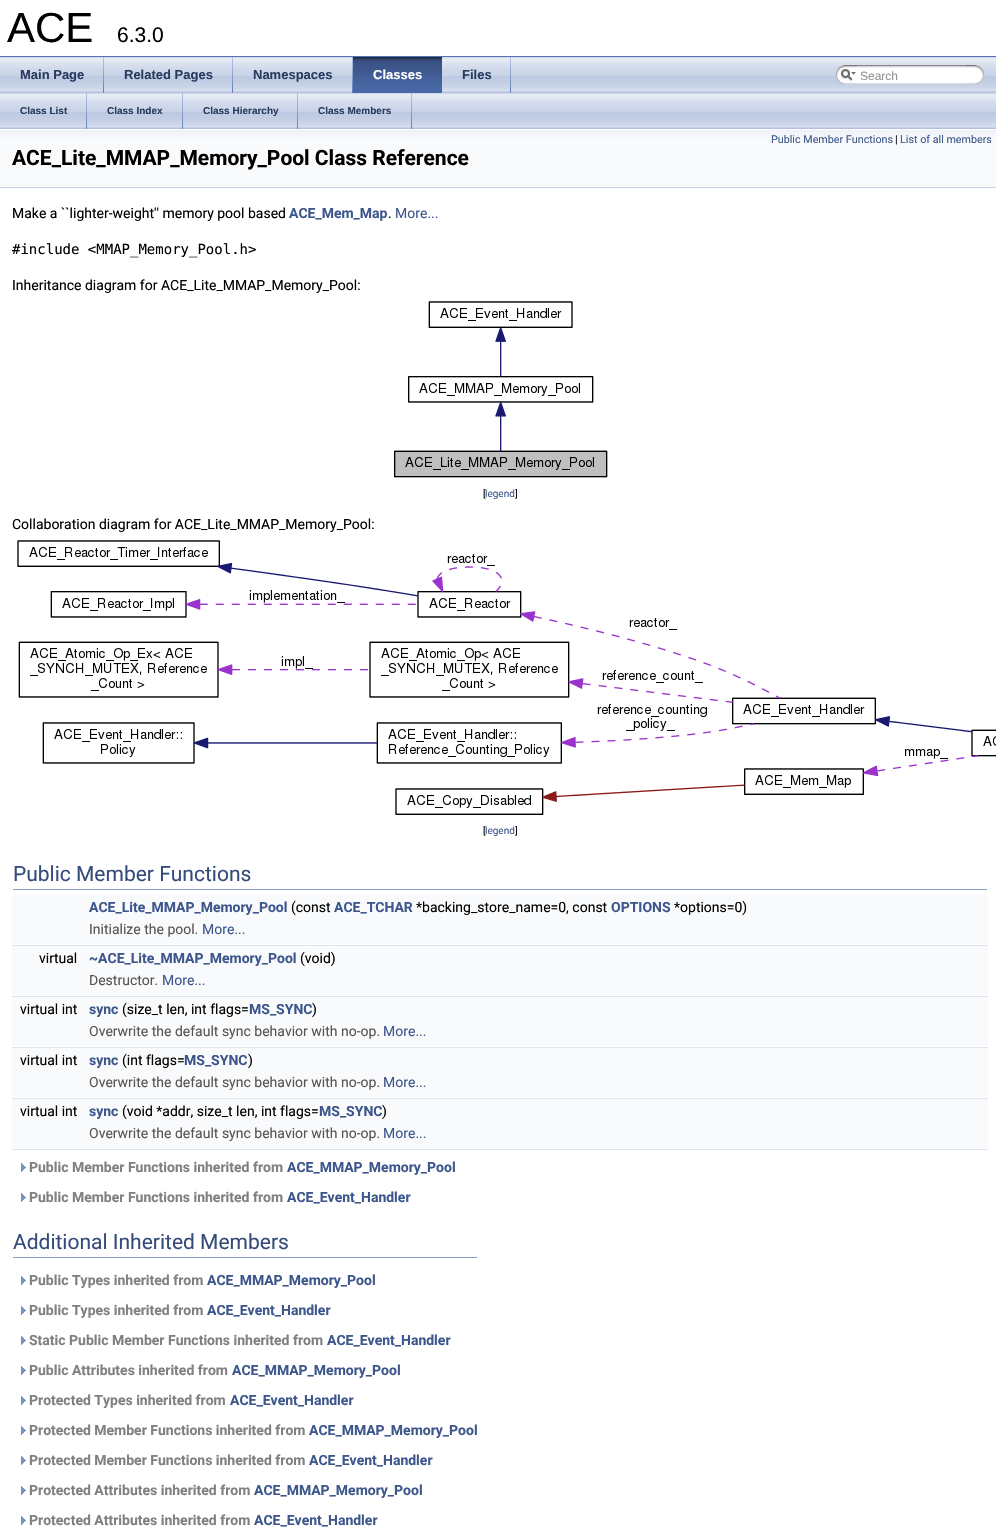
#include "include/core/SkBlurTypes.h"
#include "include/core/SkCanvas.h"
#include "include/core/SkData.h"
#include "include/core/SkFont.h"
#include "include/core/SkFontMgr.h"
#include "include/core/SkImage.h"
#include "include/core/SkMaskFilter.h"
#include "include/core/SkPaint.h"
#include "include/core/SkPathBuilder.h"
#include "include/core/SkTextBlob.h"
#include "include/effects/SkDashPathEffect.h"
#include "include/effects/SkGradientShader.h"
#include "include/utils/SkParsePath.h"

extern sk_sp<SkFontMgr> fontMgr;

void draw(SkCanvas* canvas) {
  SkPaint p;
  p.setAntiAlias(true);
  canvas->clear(SK_ColorWHITE);
  p.setColor(SkColorSetRGB(83, 115, 180));
  canvas->drawRect(SkRect::MakeLTRB(0, 56, 996, 57), p);
  canvas->drawImageRect(SkImages::DeferredFromEncodedData(SkData::MakeFromFileName("images/1.png")), SkRect::MakeLTRB(0, 57, 996, 93), SkSamplingOptions());
  canvas->drawImageRect(SkImages::DeferredFromEncodedData(SkData::MakeFromFileName("images/2.png")), SkRect::MakeLTRB(103, 57, 104, 93), SkSamplingOptions());
  canvas->drawImageRect(SkImages::DeferredFromEncodedData(SkData::MakeFromFileName("images/2.png")), SkRect::MakeLTRB(232, 57, 233, 93), SkSamplingOptions());
  canvas->drawImageRect(SkImages::DeferredFromEncodedData(SkData::MakeFromFileName("images/2.png")), SkRect::MakeLTRB(352, 57, 353, 93), SkSamplingOptions());
  canvas->drawImageRect(SkImages::DeferredFromEncodedData(SkData::MakeFromFileName("images/3.png")), SkRect::MakeLTRB(353, 57, 442, 93), SkSamplingOptions());
  canvas->drawImageRect(SkImages::DeferredFromEncodedData(SkData::MakeFromFileName("images/2.png")), SkRect::MakeLTRB(510, 57, 511, 93), SkSamplingOptions());
  canvas->drawImageRect(SkImages::DeferredFromEncodedData(SkData::MakeFromFileName("images/4.png")), SkRect::MakeLTRB(836, 65, 856, 84), SkSamplingOptions());
  canvas->drawImageRect(SkImages::DeferredFromEncodedData(SkData::MakeFromFileName("images/5.png")), SkRect::MakeLTRB(841, 69, 856, 81), SkSamplingOptions());
  canvas->drawImageRect(SkImages::DeferredFromEncodedData(SkData::MakeFromFileName("images/6.png")), SkRect::MakeLTRB(856, 65, 966, 84), SkSamplingOptions());
  canvas->drawImageRect(SkImages::DeferredFromEncodedData(SkData::MakeFromFileName("images/7.png")), SkRect::MakeLTRB(966, 65, 984, 84), SkSamplingOptions());
  canvas->drawImageRect(SkImages::DeferredFromEncodedData(SkData::MakeFromFileName("images/1.png")), SkRect::MakeLTRB(0, 93, 996, 129), SkSamplingOptions());
  canvas->drawImageRect(SkImages::DeferredFromEncodedData(SkData::MakeFromFileName("images/2.png")), SkRect::MakeLTRB(86, 93, 87, 129), SkSamplingOptions());
  canvas->drawImageRect(SkImages::DeferredFromEncodedData(SkData::MakeFromFileName("images/2.png")), SkRect::MakeLTRB(182, 93, 183, 129), SkSamplingOptions());
  canvas->drawImageRect(SkImages::DeferredFromEncodedData(SkData::MakeFromFileName("images/2.png")), SkRect::MakeLTRB(297, 93, 298, 129), SkSamplingOptions());
  canvas->drawImageRect(SkImages::DeferredFromEncodedData(SkData::MakeFromFileName("images/2.png")), SkRect::MakeLTRB(411, 93, 412, 129), SkSamplingOptions());
  p.setColor(SkColorSetRGB(249, 250, 252));
  canvas->drawRect(SkRect::MakeLTRB(0, 137, 996, 187), p);
  canvas->drawImageRect(SkImages::DeferredFromEncodedData(SkData::MakeFromFileName("images/8.png")), SkRect::MakeLTRB(0, 129, 996, 137), SkSamplingOptions());
  p.setColor(SkColorSetRGB(196, 207, 229));
  canvas->drawRect(SkRect::MakeLTRB(0, 187, 996, 188), p);
  canvas->drawImageRect(SkImages::DeferredFromEncodedData(SkData::MakeFromFileName("images/9.png")), SkRect::MakeLTRB(394, 301, 608, 478), SkSamplingOptions());
  canvas->drawImageRect(SkImages::DeferredFromEncodedData(SkData::MakeFromFileName("images/10.png")), SkRect::MakeLTRB(17, 540, 996, 815), SkSamplingOptions());
  p.setColor(SkColorSetRGB(135, 158, 203));
  canvas->drawRect(SkRect::MakeLTRB(13, 889, 987, 890), p);
  p.setColor(SkColorSetRGB(249, 250, 252));
  canvas->drawRect(SkRect::MakeLTRB(12, 895, 988, 918), p);
  canvas->drawRect(SkRect::MakeLTRB(12, 918, 988, 944), p);
  p.setColor(SkColorSetRGB(222, 228, 240));
  canvas->drawRect(SkRect::MakeLTRB(12, 945, 988, 946), p);
  p.setColor(SkColorSetRGB(249, 250, 252));
  canvas->drawRect(SkRect::MakeLTRB(12, 946, 988, 969), p);
  canvas->drawRect(SkRect::MakeLTRB(12, 969, 988, 995), p);
  p.setColor(SkColorSetRGB(222, 228, 240));
  canvas->drawRect(SkRect::MakeLTRB(12, 996, 988, 997), p);
  p.setColor(SkColorSetRGB(249, 250, 252));
  canvas->drawRect(SkRect::MakeLTRB(12, 997, 988, 1020), p);
  canvas->drawRect(SkRect::MakeLTRB(12, 1020, 988, 1046), p);
  p.setColor(SkColorSetRGB(222, 228, 240));
  canvas->drawRect(SkRect::MakeLTRB(12, 1047, 988, 1048), p);
  p.setColor(SkColorSetRGB(249, 250, 252));
  canvas->drawRect(SkRect::MakeLTRB(12, 1048, 988, 1071), p);
  canvas->drawRect(SkRect::MakeLTRB(12, 1071, 988, 1097), p);
  p.setColor(SkColorSetRGB(222, 228, 240));
  canvas->drawRect(SkRect::MakeLTRB(12, 1098, 988, 1099), p);
  p.setColor(SkColorSetRGB(249, 250, 252));
  canvas->drawRect(SkRect::MakeLTRB(12, 1099, 988, 1122), p);
  canvas->drawRect(SkRect::MakeLTRB(12, 1122, 988, 1148), p);
  p.setColor(SkColorSetRGB(222, 228, 240));
  canvas->drawRect(SkRect::MakeLTRB(12, 1149, 988, 1150), p);
  canvas->drawImageRect(SkImages::DeferredFromEncodedData(SkData::MakeFromFileName("images/11.png")), SkRect::MakeLTRB(21, 1163, 26, 1172), SkSamplingOptions());
  canvas->drawImageRect(SkImages::DeferredFromEncodedData(SkData::MakeFromFileName("images/11.png")), SkRect::MakeLTRB(21, 1193, 26, 1202), SkSamplingOptions());
  p.setColor(SkColorSetRGB(135, 158, 203));
  canvas->drawRect(SkRect::MakeLTRB(13, 1257, 477, 1258), p);
  canvas->drawImageRect(SkImages::DeferredFromEncodedData(SkData::MakeFromFileName("images/11.png")), SkRect::MakeLTRB(21, 1276, 26, 1285), SkSamplingOptions());
  canvas->drawImageRect(SkImages::DeferredFromEncodedData(SkData::MakeFromFileName("images/11.png")), SkRect::MakeLTRB(21, 1306, 26, 1315), SkSamplingOptions());
  canvas->drawImageRect(SkImages::DeferredFromEncodedData(SkData::MakeFromFileName("images/11.png")), SkRect::MakeLTRB(21, 1336, 26, 1345), SkSamplingOptions());
  canvas->drawImageRect(SkImages::DeferredFromEncodedData(SkData::MakeFromFileName("images/11.png")), SkRect::MakeLTRB(21, 1366, 26, 1375), SkSamplingOptions());
  canvas->drawImageRect(SkImages::DeferredFromEncodedData(SkData::MakeFromFileName("images/11.png")), SkRect::MakeLTRB(21, 1396, 26, 1405), SkSamplingOptions());
  canvas->drawImageRect(SkImages::DeferredFromEncodedData(SkData::MakeFromFileName("images/11.png")), SkRect::MakeLTRB(21, 1426, 26, 1435), SkSamplingOptions());
  canvas->drawImageRect(SkImages::DeferredFromEncodedData(SkData::MakeFromFileName("images/11.png")), SkRect::MakeLTRB(21, 1456, 26, 1465), SkSamplingOptions());
  canvas->drawImageRect(SkImages::DeferredFromEncodedData(SkData::MakeFromFileName("images/11.png")), SkRect::MakeLTRB(21, 1486, 26, 1495), SkSamplingOptions());
  canvas->drawImageRect(SkImages::DeferredFromEncodedData(SkData::MakeFromFileName("images/11.png")), SkRect::MakeLTRB(21, 1516, 26, 1525), SkSamplingOptions());
  SkFont font1(fontMgr->matchFamilyStyle("Liberation Sans", SkFontStyle::Normal()), 42);
  font1.setSubpixel(true);
  p.setColor(SK_ColorBLACK);
  canvas->drawString("ACE", 7, 42, font1, p);
  SkFont font2(fontMgr->matchFamilyStyle("Liberation Sans", SkFontStyle::Normal()), 21);
  font2.setSubpixel(true);
  canvas->drawString("6.3.0", 117, 42, font2, p);
  SkFont font3(fontMgr->matchFamilyStyle("Liberation Sans", SkFontStyle::Bold()), 13);
  font3.setSubpixel(true);
  p.setColor(SkColorSetRGB(40, 58, 93));
  canvas->drawString("Main Page", 20, 79, font3, p);
  canvas->drawString("Related Pages", 124, 79, font3, p);
  canvas->drawString("Namespaces", 253, 79, font3, p);
  p.setColor(SK_ColorWHITE);
  canvas->drawString("Classes", 373, 79, font3, p);
  p.setColor(SkColorSetRGB(40, 58, 93));
  canvas->drawString("Files", 462, 79, font3, p);
  SkFont font4(fontMgr->matchFamilyStyle("Liberation Sans", SkFontStyle::Normal()), 12);
  font4.setSubpixel(true);
  p.setColor(SkColorSetRGB(144, 144, 144));
  canvas->drawString("Search", 860, 80, font4, p);
  SkFont font5(fontMgr->matchFamilyStyle("Liberation Sans", SkFontStyle::Bold()), 10);
  font5.setSubpixel(true);
  p.setColor(SkColorSetRGB(40, 58, 93));
  canvas->drawString("Class List", 20, 114, font5, p);
  canvas->drawString("Class Index", 107, 114, font5, p);
  canvas->drawString("Class Hierarchy", 203, 114, font5, p);
  canvas->drawString("Class Members", 318, 114, font5, p);
  SkFont font6(fontMgr->matchFamilyStyle("Roboto", SkFontStyle::Normal()), 10.75f);
  font6.setSubpixel(true);
  p.setColor(SkColorSetRGB(61, 87, 140));
  canvas->drawString("Public Member Functions", 771, 143, font6, p);
  p.setColor(SK_ColorBLACK);
  canvas->drawString("|", 895, 143, font6, p);
  p.setColor(SkColorSetRGB(61, 87, 140));
  canvas->drawString("List of all members", 900, 143, font6, p);
  SkFont font7(fontMgr->matchFamilyStyle("Roboto", SkFontStyle::Bold()), 21);
  font7.setSubpixel(true);
  p.setColor(SK_ColorBLACK);
  canvas->drawString("ACE_Lite_MMAP_Memory_Pool Class Reference", 12, 165, font7, p);
  SkFont font8(fontMgr->matchFamilyStyle("Roboto", SkFontStyle::Normal()), 14);
  font8.setSubpixel(true);
  canvas->drawString("Make a ``lighter-weight'' memory pool based", 12, 218, font8, p);
  SkFont font9(fontMgr->matchFamilyStyle("Roboto", SkFontStyle::Bold()), 14);
  font9.setSubpixel(true);
  p.setColor(SkColorSetRGB(61, 87, 140));
  canvas->drawString("ACE_Mem_Map", 289, 218, font9, p);
  p.setColor(SK_ColorBLACK);
  canvas->drawString(".", 388, 218, font8, p);
  p.setColor(SkColorSetRGB(61, 87, 140));
  canvas->drawString("More...", 395, 218, font8, p);
  SkFont font10(fontMgr->matchFamilyStyle("DejaVu Sans Mono", SkFontStyle::Normal()), 14);
  font10.setSubpixel(true);
  p.setColor(SK_ColorBLACK);
  canvas->drawString("#include <MMAP_Memory_Pool.h>", 12, 254, font10, p);
  canvas->drawString("Inheritance diagram for ACE_Lite_MMAP_Memory_Pool:", 12, 290, font8, p);
  SkFont font11(fontMgr->matchFamilyStyle("Roboto", SkFontStyle::Normal()), 10);
  font11.setSubpixel(true);
  canvas->drawString("[", 483, 497, font11, p);
  p.setColor(SkColorSetRGB(61, 87, 140));
  canvas->drawString("legend", 485, 497, font11, p);
  p.setColor(SK_ColorBLACK);
  canvas->drawString("]", 515, 497, font11, p);
  canvas->drawString("Collaboration diagram for ACE_Lite_MMAP_Memory_Pool:", 12, 529, font8, p);
  canvas->drawString("[", 483, 834, font11, p);
  p.setColor(SkColorSetRGB(61, 87, 140));
  canvas->drawString("legend", 485, 834, font11, p);
  p.setColor(SK_ColorBLACK);
  canvas->drawString("]", 515, 834, font11, p);
  SkFont font12(fontMgr->matchFamilyStyle("Roboto", SkFontStyle::Normal()), 21);
  font12.setSubpixel(true);
  p.setColor(SkColorSetRGB(53, 76, 123));
  canvas->drawString("Public Member Functions", 13, 881, font12, p);
  p.setColor(SkColorSetRGB(61, 87, 140));
  canvas->drawString("ACE_Lite_MMAP_Memory_Pool", 89, 912, font9, p);
  p.setColor(SK_ColorBLACK);
  canvas->drawString("(const", 291, 912, font8, p);
  p.setColor(SkColorSetRGB(61, 87, 140));
  canvas->drawString("ACE_TCHAR", 334, 912, font9, p);
  p.setColor(SK_ColorBLACK);
  canvas->drawString("*backing_store_name=0, const", 416, 912, font8, p);
  p.setColor(SkColorSetRGB(61, 87, 140));
  canvas->drawString("OPTIONS", 611, 912, font9, p);
  p.setColor(SK_ColorBLACK);
  canvas->drawString("*options=0)", 674, 912, font8, p);
  p.setColor(SkColorSetRGB(85, 85, 85));
  canvas->drawString("Initialize the pool.", 89, 934, font8, p);
  p.setColor(SkColorSetRGB(61, 87, 140));
  canvas->drawString("More...", 202, 934, font8, p);
  p.setColor(SK_ColorBLACK);
  canvas->drawString("virtual", 39, 963, font8, p);
  p.setColor(SkColorSetRGB(61, 87, 140));
  canvas->drawString("~ACE_Lite_MMAP_Memory_Pool", 89, 963, font9, p);
  p.setColor(SK_ColorBLACK);
  canvas->drawString("(void)", 300, 963, font8, p);
  p.setColor(SkColorSetRGB(85, 85, 85));
  canvas->drawString("Destructor.", 89, 985, font8, p);
  p.setColor(SkColorSetRGB(61, 87, 140));
  canvas->drawString("More...", 162, 985, font8, p);
  p.setColor(SK_ColorBLACK);
  canvas->drawString("virtual int", 20, 1014, font8, p);
  p.setColor(SkColorSetRGB(61, 87, 140));
  canvas->drawString("sync", 89, 1014, font9, p);
  p.setColor(SK_ColorBLACK);
  canvas->drawString("(size_t len, int flags=", 122, 1014, font8, p);
  p.setColor(SkColorSetRGB(61, 87, 140));
  canvas->drawString("MS_SYNC", 249, 1014, font9, p);
  p.setColor(SK_ColorBLACK);
  canvas->drawString(")", 312, 1014, font8, p);
  p.setColor(SkColorSetRGB(85, 85, 85));
  canvas->drawString("Overwrite the default sync behavior with no-op.", 89, 1036, font8, p);
  p.setColor(SkColorSetRGB(61, 87, 140));
  canvas->drawString("More...", 383, 1036, font8, p);
  p.setColor(SK_ColorBLACK);
  canvas->drawString("virtual int", 20, 1065, font8, p);
  p.setColor(SkColorSetRGB(61, 87, 140));
  canvas->drawString("sync", 89, 1065, font9, p);
  p.setColor(SK_ColorBLACK);
  canvas->drawString("(int flags=", 122, 1065, font8, p);
  p.setColor(SkColorSetRGB(61, 87, 140));
  canvas->drawString("MS_SYNC", 184, 1065, font9, p);
  p.setColor(SK_ColorBLACK);
  canvas->drawString(")", 248, 1065, font8, p);
  p.setColor(SkColorSetRGB(85, 85, 85));
  canvas->drawString("Overwrite the default sync behavior with no-op.", 89, 1087, font8, p);
  p.setColor(SkColorSetRGB(61, 87, 140));
  canvas->drawString("More...", 383, 1087, font8, p);
  p.setColor(SK_ColorBLACK);
  canvas->drawString("virtual int", 20, 1116, font8, p);
  p.setColor(SkColorSetRGB(61, 87, 140));
  canvas->drawString("sync", 89, 1116, font9, p);
  p.setColor(SK_ColorBLACK);
  canvas->drawString("(void *addr, size_t len, int flags=", 122, 1116, font8, p);
  p.setColor(SkColorSetRGB(61, 87, 140));
  canvas->drawString("MS_SYNC", 319, 1116, font9, p);
  p.setColor(SK_ColorBLACK);
  canvas->drawString(")", 382, 1116, font8, p);
  p.setColor(SkColorSetRGB(85, 85, 85));
  canvas->drawString("Overwrite the default sync behavior with no-op.", 89, 1138, font8, p);
  p.setColor(SkColorSetRGB(61, 87, 140));
  canvas->drawString("More...", 383, 1138, font8, p);
  p.setColor(SkColorSetRGB(128, 128, 128));
  canvas->drawString("Public Member Functions inherited from", 29, 1172, font9, p);
  p.setColor(SkColorSetRGB(61, 87, 140));
  canvas->drawString("ACE_MMAP_Memory_Pool", 287, 1172, font9, p);
  p.setColor(SkColorSetRGB(128, 128, 128));
  canvas->drawString("Public Member Functions inherited from", 29, 1202, font9, p);
  p.setColor(SkColorSetRGB(61, 87, 140));
  canvas->drawString("ACE_Event_Handler", 287, 1202, font9, p);
  p.setColor(SkColorSetRGB(53, 76, 123));
  canvas->drawString("Additional Inherited Members", 13, 1249, font12, p);
  p.setColor(SkColorSetRGB(128, 128, 128));
  canvas->drawString("Public Types inherited from", 29, 1285, font9, p);
  p.setColor(SkColorSetRGB(61, 87, 140));
  canvas->drawString("ACE_MMAP_Memory_Pool", 207, 1285, font9, p);
  p.setColor(SkColorSetRGB(128, 128, 128));
  canvas->drawString("Public Types inherited from", 29, 1315, font9, p);
  p.setColor(SkColorSetRGB(61, 87, 140));
  canvas->drawString("ACE_Event_Handler", 207, 1315, font9, p);
  p.setColor(SkColorSetRGB(128, 128, 128));
  canvas->drawString("Static Public Member Functions inherited from", 29, 1345, font9, p);
  p.setColor(SkColorSetRGB(61, 87, 140));
  canvas->drawString("ACE_Event_Handler", 327, 1345, font9, p);
  p.setColor(SkColorSetRGB(128, 128, 128));
  canvas->drawString("Public Attributes inherited from", 29, 1375, font9, p);
  p.setColor(SkColorSetRGB(61, 87, 140));
  canvas->drawString("ACE_MMAP_Memory_Pool", 232, 1375, font9, p);
  p.setColor(SkColorSetRGB(128, 128, 128));
  canvas->drawString("Protected Types inherited from", 29, 1405, font9, p);
  p.setColor(SkColorSetRGB(61, 87, 140));
  canvas->drawString("ACE_Event_Handler", 230, 1405, font9, p);
  p.setColor(SkColorSetRGB(128, 128, 128));
  canvas->drawString("Protected Member Functions inherited from", 29, 1435, font9, p);
  p.setColor(SkColorSetRGB(61, 87, 140));
  canvas->drawString("ACE_MMAP_Memory_Pool", 309, 1435, font9, p);
  p.setColor(SkColorSetRGB(128, 128, 128));
  canvas->drawString("Protected Member Functions inherited from", 29, 1465, font9, p);
  p.setColor(SkColorSetRGB(61, 87, 140));
  canvas->drawString("ACE_Event_Handler", 309, 1465, font9, p);
  p.setColor(SkColorSetRGB(128, 128, 128));
  canvas->drawString("Protected Attributes inherited from", 29, 1495, font9, p);
  p.setColor(SkColorSetRGB(61, 87, 140));
  canvas->drawString("ACE_MMAP_Memory_Pool", 254, 1495, font9, p);
  p.setColor(SkColorSetRGB(128, 128, 128));
  canvas->drawString("Protected Attributes inherited from", 29, 1525, font9, p);
  p.setColor(SkColorSetRGB(61, 87, 140));
  canvas->drawString("ACE_Event_Handler", 254, 1525, font9, p);
}
